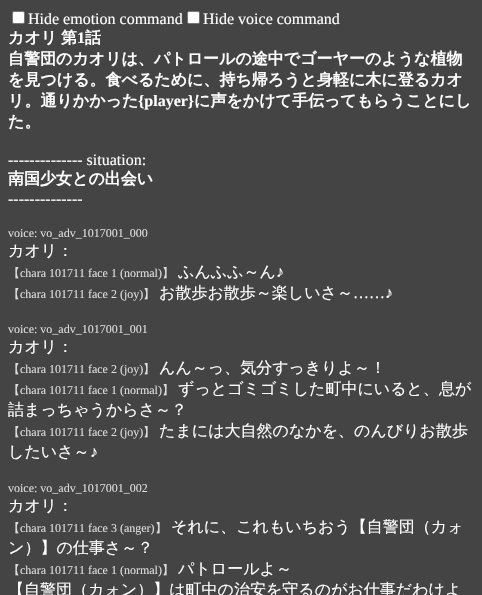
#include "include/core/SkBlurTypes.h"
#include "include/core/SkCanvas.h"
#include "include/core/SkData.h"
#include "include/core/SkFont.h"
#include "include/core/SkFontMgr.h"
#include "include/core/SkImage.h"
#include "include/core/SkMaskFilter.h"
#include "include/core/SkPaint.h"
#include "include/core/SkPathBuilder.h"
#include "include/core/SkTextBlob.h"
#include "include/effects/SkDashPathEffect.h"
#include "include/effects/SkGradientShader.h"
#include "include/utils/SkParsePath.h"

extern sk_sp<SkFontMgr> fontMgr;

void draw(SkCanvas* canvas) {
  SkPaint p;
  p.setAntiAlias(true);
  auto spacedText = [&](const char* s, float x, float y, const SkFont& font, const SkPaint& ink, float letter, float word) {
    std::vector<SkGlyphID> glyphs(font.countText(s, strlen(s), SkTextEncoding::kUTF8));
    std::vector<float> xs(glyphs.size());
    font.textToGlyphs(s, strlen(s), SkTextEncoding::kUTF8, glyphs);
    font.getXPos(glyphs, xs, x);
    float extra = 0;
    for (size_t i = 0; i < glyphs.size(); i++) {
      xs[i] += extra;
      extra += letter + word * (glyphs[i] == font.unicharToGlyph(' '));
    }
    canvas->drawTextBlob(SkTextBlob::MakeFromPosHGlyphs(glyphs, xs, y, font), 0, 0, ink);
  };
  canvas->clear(SkColorSetRGB(68, 68, 68));
  p.setColor(SK_ColorWHITE);
  canvas->drawRoundRect(SkRect::MakeLTRB(12.5f, 11.5f, 24.5f, 23.5f), 1.5f, 1.5f, p);
  p.setStyle(SkPaint::kStroke_Style);
  p.setStrokeWidth(1);
  p.setColor(SkColorSetRGB(118, 118, 118));
  canvas->drawRoundRect(SkRect::MakeLTRB(12.5f, 11.5f, 24.5f, 23.5f), 1.5f, 1.5f, p);
  p.setStyle(SkPaint::kFill_Style);
  p.setColor(SK_ColorWHITE);
  canvas->drawRoundRect(SkRect::MakeLTRB(187.5f, 11.5f, 199.5f, 23.5f), 1.5f, 1.5f, p);
  p.setStyle(SkPaint::kStroke_Style);
  p.setColor(SkColorSetRGB(118, 118, 118));
  canvas->drawRoundRect(SkRect::MakeLTRB(187.5f, 11.5f, 199.5f, 23.5f), 1.5f, 1.5f, p);
  SkFont font1(fontMgr->matchFamilyStyle("Liberation Serif", SkFontStyle::Normal()), 16);
  font1.setSubpixel(true);
  p.setStyle(SkPaint::kFill_Style);
  p.setColor(SK_ColorWHITE);
  canvas->drawString("Hide emotion command", 28, 24, font1, p);
  canvas->drawString("Hide voice command", 203, 24, font1, p);
  SkFont font2(fontMgr->matchFamilyStyle("WenQuanYi Zen Hei", SkFontStyle::Bold()), 16);
  font2.setSubpixel(true);
  spacedText("カオリ 第", 8, 43, font2, p, 0, -1);
  SkFont font3(fontMgr->matchFamilyStyle("Liberation Serif", SkFontStyle::Bold()), 16);
  font3.setSubpixel(true);
  canvas->drawString("1", 77, 43, font3, p);
  canvas->drawString("話", 85, 43, font2, p);
  canvas->drawString("自警団のカオリは、パトロールの途中でゴーヤーのような植物", 8, 64, font2, p);
  canvas->drawString("を見つける。食べるために、持ち帰ろうと身軽に木に登るカオ", 8, 85, font2, p);
  canvas->drawString("リ。通りかかった", 8, 106, font2, p);
  canvas->drawString("{player}", 138, 106, font3, p);
  canvas->drawString("に声をかけて手伝ってもらうことにし", 194, 106, font2, p);
  canvas->drawString("た。", 8, 127, font2, p);
  canvas->drawString("-------------- situation:", 8, 165, font1, p);
  canvas->drawString("南国少女との出会い", 8, 184, font2, p);
  canvas->drawString("--------------", 8, 204, font1, p);
  SkFont font4(fontMgr->matchFamilyStyle("Liberation Serif", SkFontStyle::Normal()), 12);
  font4.setSubpixel(true);
  p.setColor(SkColorSetRGB(221, 221, 221));
  canvas->drawString("voice: vo_adv_1017001_000", 8, 237, font4, p);
  SkFont font5(fontMgr->matchFamilyStyle("WenQuanYi Zen Hei", SkFontStyle(500, SkFontStyle::kNormal_Width, SkFontStyle::kUpright_Slant)), 16);
  font5.setSubpixel(true);
  p.setColor(SK_ColorWHITE);
  canvas->drawString("カオリ：", 8, 256, font5, p);
  SkFont font6(fontMgr->matchFamilyStyle("WenQuanYi Zen Hei", SkFontStyle(500, SkFontStyle::kNormal_Width, SkFontStyle::kUpright_Slant)), 12);
  font6.setSubpixel(true);
  p.setColor(SkColorSetRGB(221, 221, 221));
  canvas->drawString("【", 8, 277, font6, p);
  canvas->drawString("chara 101711 face 1 (normal)", 20, 277, font4, p);
  canvas->drawString("】", 162, 277, font6, p);
  p.setColor(SK_ColorWHITE);
  canvas->drawString("ふんふふ～ん", 178, 277, font5, p);
  canvas->drawString("♪", 276, 277, font1, p);
  p.setColor(SkColorSetRGB(221, 221, 221));
  canvas->drawString("【", 8, 298, font6, p);
  canvas->drawString("chara 101711 face 2 (joy)", 20, 298, font4, p);
  canvas->drawString("】", 143, 298, font6, p);
  p.setColor(SK_ColorWHITE);
  canvas->drawString("お散歩お散歩～楽しいさ～", 159, 298, font5, p);
  canvas->drawString("……♪", 353, 298, font1, p);
  p.setColor(SkColorSetRGB(221, 221, 221));
  canvas->drawString("voice: vo_adv_1017001_001", 8, 333, font4, p);
  p.setColor(SK_ColorWHITE);
  canvas->drawString("カオリ：", 8, 352, font5, p);
  p.setColor(SkColorSetRGB(221, 221, 221));
  canvas->drawString("【", 8, 373, font6, p);
  canvas->drawString("chara 101711 face 2 (joy)", 20, 373, font4, p);
  canvas->drawString("】", 143, 373, font6, p);
  p.setColor(SK_ColorWHITE);
  canvas->drawString("んん～っ、気分すっきりよ～！", 159, 373, font5, p);
  p.setColor(SkColorSetRGB(221, 221, 221));
  canvas->drawString("【", 8, 394, font6, p);
  canvas->drawString("chara 101711 face 1 (normal)", 20, 394, font4, p);
  canvas->drawString("】", 162, 394, font6, p);
  p.setColor(SK_ColorWHITE);
  canvas->drawString("ずっとゴミゴミした町中にいると、息が", 178, 394, font5, p);
  canvas->drawString("詰まっちゃうからさ～？", 8, 415, font5, p);
  p.setColor(SkColorSetRGB(221, 221, 221));
  canvas->drawString("【", 8, 436, font6, p);
  canvas->drawString("chara 101711 face 2 (joy)", 20, 436, font4, p);
  canvas->drawString("】", 143, 436, font6, p);
  p.setColor(SK_ColorWHITE);
  canvas->drawString("たまには大自然のなかを、のんびりお散歩", 159, 436, font5, p);
  canvas->drawString("したいさ～", 8, 457, font5, p);
  canvas->drawString("♪", 90, 457, font1, p);
  p.setColor(SkColorSetRGB(221, 221, 221));
  canvas->drawString("voice: vo_adv_1017001_002", 8, 492, font4, p);
  p.setColor(SK_ColorWHITE);
  canvas->drawString("カオリ：", 8, 511, font5, p);
  p.setColor(SkColorSetRGB(221, 221, 221));
  canvas->drawString("【", 8, 532, font6, p);
  canvas->drawString("chara 101711 face 3 (anger)", 20, 532, font4, p);
  canvas->drawString("】", 155, 532, font6, p);
  p.setColor(SK_ColorWHITE);
  canvas->drawString("それに、これもいちおう【自警団（カォ", 171, 532, font5, p);
  canvas->drawString("ン）】の仕事さ～？", 8, 553, font5, p);
  p.setColor(SkColorSetRGB(221, 221, 221));
  canvas->drawString("【", 8, 574, font6, p);
  canvas->drawString("chara 101711 face 1 (normal)", 20, 574, font4, p);
  canvas->drawString("】", 162, 574, font6, p);
  p.setColor(SK_ColorWHITE);
  canvas->drawString("パトロールよ～", 178, 574, font5, p);
  canvas->drawString("【自警団（カォン）】は町中の治安を守るのがお仕事だわけよ", 8, 595, font5, p);
}
